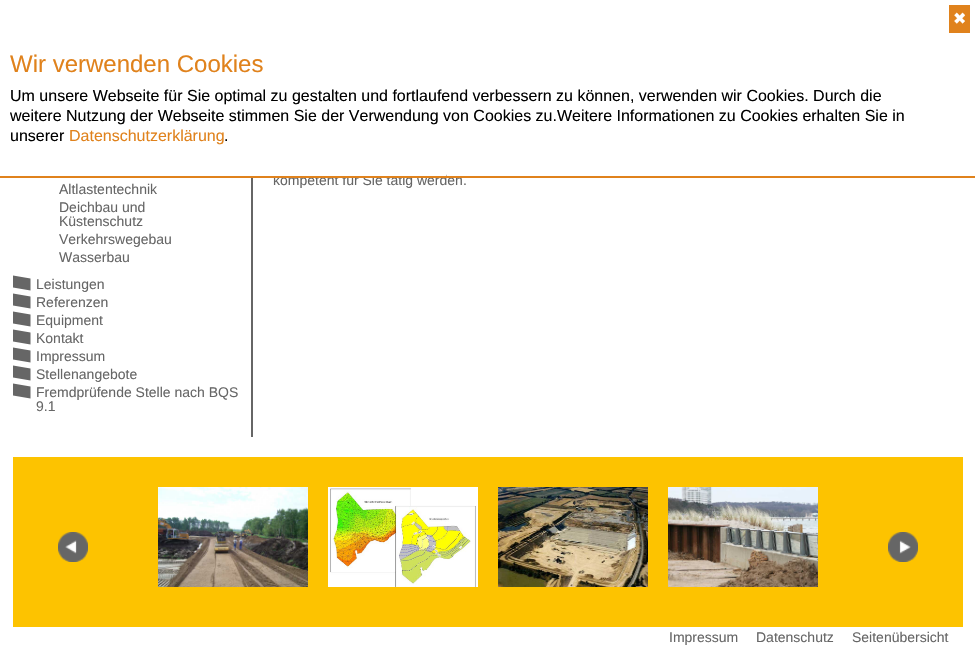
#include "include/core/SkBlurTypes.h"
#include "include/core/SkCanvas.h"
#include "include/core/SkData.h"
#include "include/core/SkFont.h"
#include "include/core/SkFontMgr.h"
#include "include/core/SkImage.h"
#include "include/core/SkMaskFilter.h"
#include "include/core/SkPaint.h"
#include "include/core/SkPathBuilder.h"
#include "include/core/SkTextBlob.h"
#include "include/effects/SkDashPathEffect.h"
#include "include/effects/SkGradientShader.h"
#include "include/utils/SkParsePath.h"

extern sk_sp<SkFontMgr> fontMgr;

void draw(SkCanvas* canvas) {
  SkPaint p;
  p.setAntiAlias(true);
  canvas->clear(SK_ColorWHITE);
  p.setColor(SkColorSetRGB(224, 130, 28));
  canvas->drawRect(SkRect::MakeLTRB(949, 5, 970, 33), p);
  p.setColor(SkColorSetRGB(102, 102, 102));
  canvas->drawRect(SkRect::MakeLTRB(251, 178, 253, 437), p);
  canvas->save();
  canvas->clipRect(SkRect::MakeLTRB(13, 37, 248, 417));
  canvas->drawPath(SkPathBuilder().moveTo(12.5f, 275.5f).lineTo(30.5f, 278.5f).lineTo(30.5f, 290.5f).lineTo(12.5f, 287.5f).close().moveTo(12.5f, 293.5f).lineTo(30.5f, 296.5f).lineTo(30.5f, 308.5f).lineTo(12.5f, 305.5f).close().moveTo(12.5f, 311.5f).lineTo(30.5f, 314.5f).lineTo(30.5f, 326.5f).lineTo(12.5f, 323.5f).close().detach(), p);
  canvas->drawPath(SkPathBuilder().moveTo(12.5f, 329.5f).lineTo(30.5f, 332.5f).lineTo(30.5f, 344.5f).lineTo(12.5f, 341.5f).close().moveTo(12.5f, 347.5f).lineTo(30.5f, 350.5f).lineTo(30.5f, 362.5f).lineTo(12.5f, 359.5f).close().moveTo(12.5f, 365.5f).lineTo(30.5f, 368.5f).lineTo(30.5f, 380.5f).lineTo(12.5f, 377.5f).close().detach(), p);
  canvas->drawPath(SkPathBuilder().moveTo(12.5f, 383.5f).lineTo(30.5f, 386.5f).lineTo(30.5f, 398.5f).lineTo(12.5f, 395.5f).close().detach(), p);
  canvas->restore();
  p.setColor(SkColorSetRGB(253, 195, 0));
  canvas->drawRect(SkRect::MakeLTRB(13, 457, 963, 627), p);
  canvas->drawImageRect(SkImages::DeferredFromEncodedData(SkData::MakeFromFileName("images/1.png")), SkRect::MakeLTRB(158, 487, 308, 587), SkSamplingOptions());
  canvas->drawImageRect(SkImages::DeferredFromEncodedData(SkData::MakeFromFileName("images/2.png")), SkRect::MakeLTRB(328, 487, 478, 587), SkSamplingOptions());
  canvas->drawImageRect(SkImages::DeferredFromEncodedData(SkData::MakeFromFileName("images/3.png")), SkRect::MakeLTRB(498, 487, 648, 587), SkSamplingOptions());
  canvas->drawImageRect(SkImages::DeferredFromEncodedData(SkData::MakeFromFileName("images/4.png")), SkRect::MakeLTRB(668, 487, 818, 587), SkSamplingOptions());
  canvas->drawImageRect(SkImages::DeferredFromEncodedData(SkData::MakeFromFileName("images/5.png")), SkRect::MakeLTRB(58, 532, 88, 562), SkSamplingOptions());
  canvas->drawImageRect(SkImages::DeferredFromEncodedData(SkData::MakeFromFileName("images/6.png")), SkRect::MakeLTRB(888, 532, 918, 562), SkSamplingOptions());
  SkFont font1(fontMgr->matchFamilyStyle("DejaVu Sans", SkFontStyle::Normal()), 16);
  font1.setSubpixel(true);
  p.setColor(SK_ColorWHITE);
  canvas->drawString("✖", 953, 24, font1, p);
  SkFont font2(fontMgr->matchFamilyStyle("Liberation Sans", SkFontStyle::Normal()), 24);
  font2.setSubpixel(true);
  p.setColor(SkColorSetRGB(224, 130, 28));
  canvas->drawString("Wir verwenden Cookies", 10, 72, font2, p);
  SkFont font3(fontMgr->matchFamilyStyle("Liberation Sans", SkFontStyle::Normal()), 16);
  font3.setSubpixel(true);
  p.setColor(SK_ColorBLACK);
  canvas->drawString("Um unsere Webseite für Sie optimal zu gestalten und fortlaufend verbessern zu können, verwenden wir Cookies. Durch die", 10, 101, font3, p);
  canvas->drawString("weitere Nutzung der Webseite stimmen Sie der Verwendung von Cookies zu.Weitere Informationen zu Cookies erhalten Sie in", 10, 121, font3, p);
  canvas->drawString("unserer", 10, 141, font3, p);
  p.setColor(SkColorSetRGB(224, 130, 28));
  canvas->drawString("Datenschutzerklärung", 69, 141, font3, p);
  p.setColor(SK_ColorBLACK);
  canvas->drawString(".", 224, 141, font3, p);
  SkFont font4(fontMgr->matchFamilyStyle("Liberation Sans", SkFontStyle::Normal()), 14);
  font4.setSubpixel(true);
  p.setColor(SkColorSetRGB(102, 102, 102));
  canvas->drawString("kompetent für Sie tätig werden.", 273, 185, font4, p);
  p.setColor(SkColorSetRGB(224, 130, 28));
  canvas->drawRect(SkRect::MakeLTRB(0, 176, 975, 178), p);
  p.setColor(SK_ColorWHITE);
  canvas->drawRect(SkRect::MakeLTRB(273, 174, 446, 176), p);
  p.setColor(SkColorSetRGB(102, 102, 102));
  canvas->drawString("Altlastentechnik", 59, 194, font4, p);
  canvas->drawString("Deichbau und", 59, 212, font4, p);
  canvas->drawString("Küstenschutz", 59, 226, font4, p);
  canvas->drawString("Verkehrswegebau", 59, 244, font4, p);
  canvas->drawString("Wasserbau", 59, 262, font4, p);
  canvas->drawString("Leistungen", 36, 289, font4, p);
  canvas->drawString("Referenzen", 36, 307, font4, p);
  canvas->drawString("Equipment", 36, 325, font4, p);
  canvas->drawString("Kontakt", 36, 343, font4, p);
  canvas->drawString("Impressum", 36, 361, font4, p);
  canvas->drawString("Stellenangebote", 36, 379, font4, p);
  canvas->drawString("Fremdprüfende Stelle nach BQS", 36, 397, font4, p);
  canvas->drawString("9.1", 36, 411, font4, p);
  canvas->drawString("Impressum", 669, 642, font4, p);
  canvas->drawString("Datenschutz", 756, 642, font4, p);
  canvas->drawString("Seitenübersicht", 852, 642, font4, p);
}
